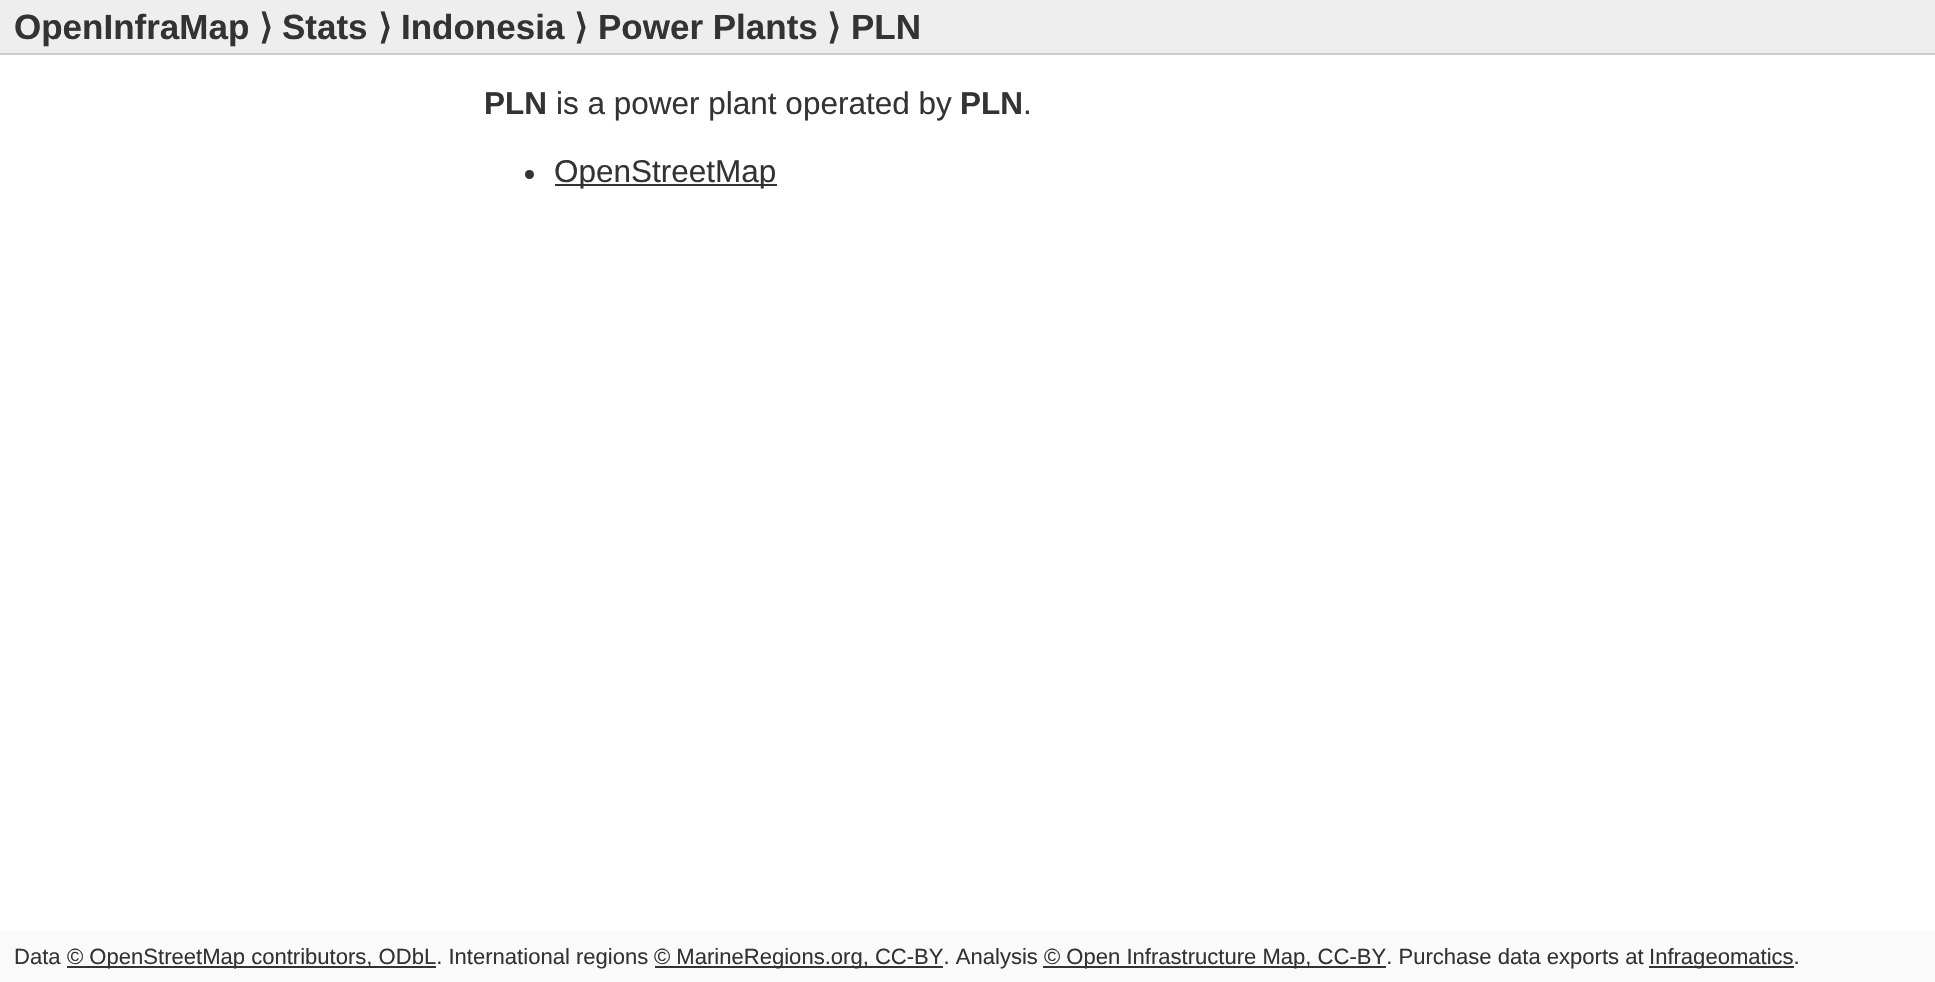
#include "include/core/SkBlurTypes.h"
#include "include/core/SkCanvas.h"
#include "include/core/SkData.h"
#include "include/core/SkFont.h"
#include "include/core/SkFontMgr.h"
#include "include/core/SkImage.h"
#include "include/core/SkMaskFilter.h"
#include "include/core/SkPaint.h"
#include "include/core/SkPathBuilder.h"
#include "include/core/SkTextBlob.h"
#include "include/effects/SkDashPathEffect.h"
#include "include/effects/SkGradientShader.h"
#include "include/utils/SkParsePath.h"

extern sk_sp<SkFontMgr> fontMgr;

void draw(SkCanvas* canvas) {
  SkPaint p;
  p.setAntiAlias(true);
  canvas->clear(SK_ColorWHITE);
  p.setColor(SkColorSetRGB(238, 238, 238));
  canvas->drawRect(SkRect::MakeLTRB(0, 0, 1935, 53), p);
  p.setColor(SkColorSetRGB(204, 204, 204));
  canvas->drawRect(SkRect::MakeLTRB(0, 53, 1935, 55), p);
  p.setColor(SkColorSetRGB(51, 51, 51));
  canvas->drawCircle(529.5f, 174.5f, 4.5f, p);
  canvas->drawRect(SkRect::MakeLTRB(555, 184, 777, 186), p);
  p.setColor(SkColorSetRGB(250, 250, 250));
  canvas->drawRect(SkRect::MakeLTRB(0, 931, 1935, 982), p);
  p.setColor(SkColorSetRGB(51, 51, 51));
  canvas->drawRect(SkRect::MakeLTRB(67, 966, 436, 968), p);
  canvas->drawRect(SkRect::MakeLTRB(655, 966, 943, 968), p);
  canvas->drawRect(SkRect::MakeLTRB(1043, 966, 1386, 968), p);
  canvas->drawRect(SkRect::MakeLTRB(1649, 966, 1794, 968), p);
  SkFont font1(fontMgr->matchFamilyStyle("Liberation Sans", SkFontStyle::Bold()), 35);
  font1.setSubpixel(true);
  canvas->drawString("OpenInfraMap", 14, 39, font1, p);
  SkFont font2(fontMgr->matchFamilyStyle("DejaVu Sans", SkFontStyle::Bold()), 35);
  font2.setSubpixel(true);
  canvas->drawString("⟩", 259, 39, font2, p);
  canvas->drawString("Stats", 282, 39, font1, p);
  canvas->drawString("⟩", 378, 39, font2, p);
  canvas->drawString("Indonesia", 401, 39, font1, p);
  canvas->drawString("⟩", 574, 39, font2, p);
  canvas->drawString("Power Plants", 598, 39, font1, p);
  canvas->drawString("⟩", 827, 39, font2, p);
  canvas->drawString("PLN", 851, 39, font1, p);
  SkFont font3(fontMgr->matchFamilyStyle("Liberation Sans", SkFontStyle::Bold()), 31.5f);
  font3.setSubpixel(true);
  canvas->drawString("PLN", 484, 114, font3, p);
  SkFont font4(fontMgr->matchFamilyStyle("Liberation Sans", SkFontStyle::Normal()), 31.5f);
  font4.setSubpixel(true);
  canvas->drawString("is a power plant operated by", 556, 114, font4, p);
  canvas->drawString("PLN", 960, 114, font3, p);
  canvas->drawString(".", 1023, 114, font4, p);
  canvas->drawString("OpenStreetMap", 554, 182, font4, p);
  SkFont font5(fontMgr->matchFamilyStyle("Liberation Sans", SkFontStyle::Normal()), 22.05f);
  font5.setSubpixel(true);
  canvas->drawString("Data", 14, 964, font5, p);
  canvas->drawString("© OpenStreetMap contributors, ODbL. International regions", 67, 964, font5, p);
  canvas->drawString("© MarineRegions.org, CC-BY. Analysis", 654, 964, font5, p);
  canvas->drawString("© Open Infrastructure Map, CC-BY. Purchase data exports at", 1044, 964, font5, p);
  canvas->drawString("Infrageomatics.", 1649, 964, font5, p);
}
